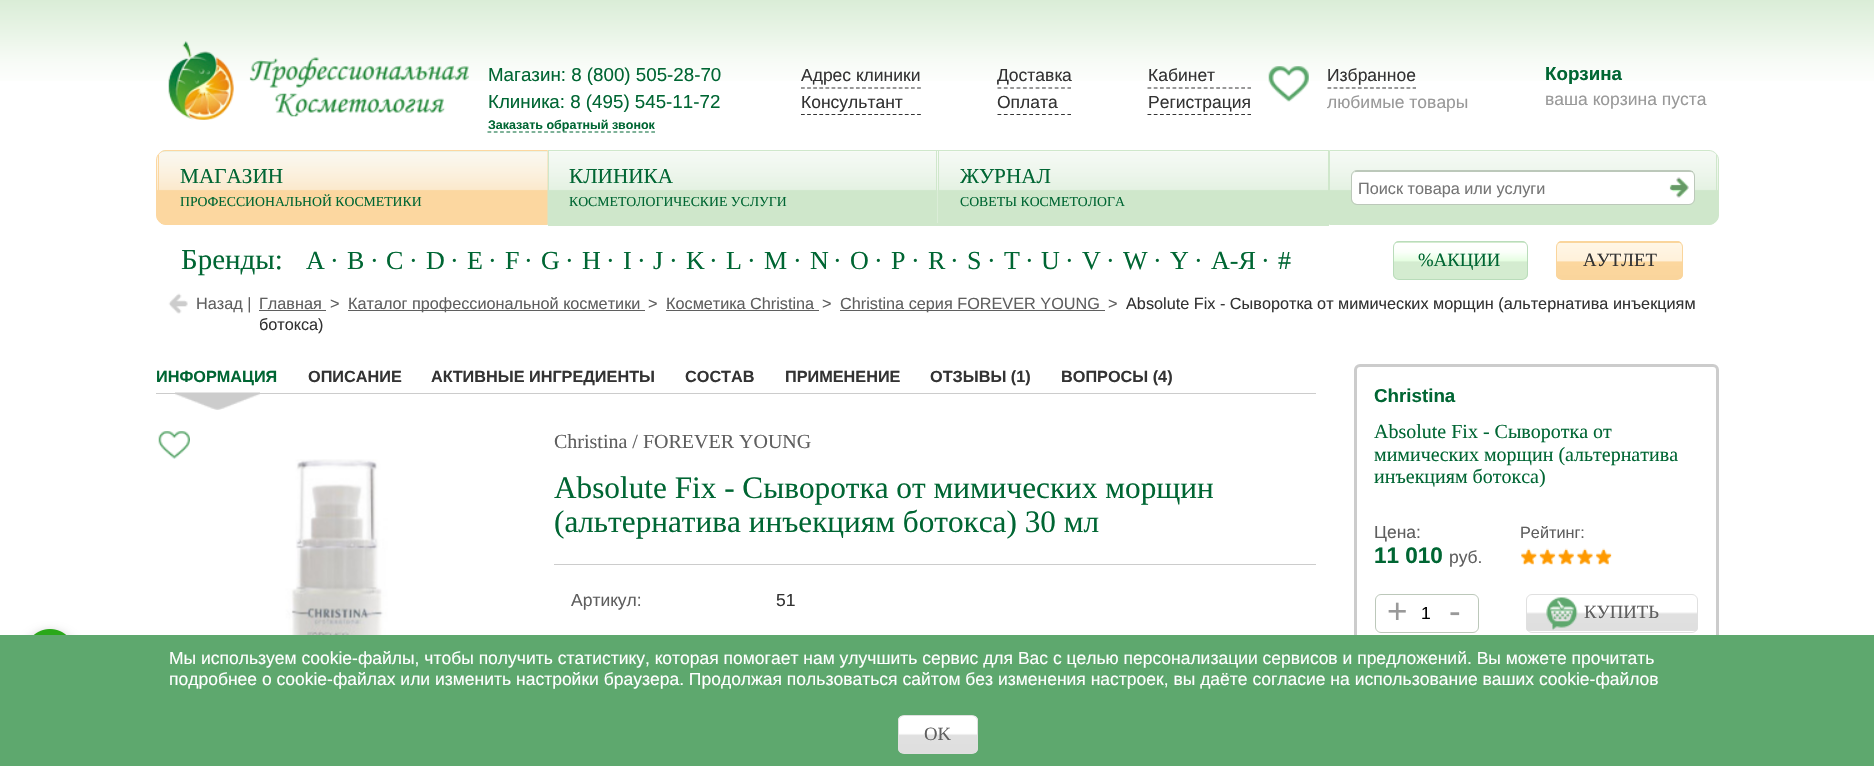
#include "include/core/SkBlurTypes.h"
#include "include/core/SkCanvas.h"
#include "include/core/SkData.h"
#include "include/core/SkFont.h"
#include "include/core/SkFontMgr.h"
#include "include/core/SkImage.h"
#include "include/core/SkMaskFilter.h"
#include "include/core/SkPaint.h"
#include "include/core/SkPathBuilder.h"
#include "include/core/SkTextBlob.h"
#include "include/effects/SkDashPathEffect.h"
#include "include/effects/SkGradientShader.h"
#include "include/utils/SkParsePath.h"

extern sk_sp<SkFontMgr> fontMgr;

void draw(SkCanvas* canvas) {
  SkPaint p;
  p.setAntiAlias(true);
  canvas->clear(SK_ColorWHITE);
  {
    const SkColor colors[] = {SkColorSetRGB(218, 237, 215), SkColorSetRGB(234, 245, 232), SkColorSetRGB(247, 251, 246), SK_ColorWHITE};
    const float stops[] = {0, 0.4f, 0.7f, 1};
    const SkPoint ends[] = {{938, 0}, {938, 88}};
    p.setShader(SkGradientShader::MakeLinear(ends, colors, stops, 4, SkTileMode::kClamp));
    p.setAlpha(255);
  }
  canvas->drawRect(SkRect::MakeLTRB(0, 0, 1874, 81), p);
  canvas->drawImageRect(SkImages::DeferredFromEncodedData(SkData::MakeFromFileName("images/1.png")), SkRect::MakeLTRB(168, 41, 469, 120), SkSamplingOptions());
  p.setStyle(SkPaint::kStroke_Style);
  p.setStrokeWidth(1.2f);
  p.setShader(nullptr);
  p.setColor(SkColorSetRGB(0, 102, 51));
  p.setPathEffect(SkDashPathEffect::Make({{3.75f, 2.55f}}, 0));
  canvas->drawPath(SkPathBuilder().moveTo(487.5f, 132).lineTo(655, 132).detach(), p);
  p.setPathEffect(nullptr);
  p.setColor(SkColorSetRGB(51, 51, 51));
  p.setPathEffect(SkDashPathEffect::Make({{3.75f, 2.36f}}, 0));
  canvas->drawPath(SkPathBuilder().moveTo(801, 88).lineTo(921, 88).detach(), p);
  p.setPathEffect(nullptr);
  p.setPathEffect(SkDashPathEffect::Make({{3.75f, 2.36f}}, 0));
  canvas->drawPath(SkPathBuilder().moveTo(801, 114.5f).lineTo(921, 114.5f).detach(), p);
  p.setPathEffect(nullptr);
  p.setPathEffect(SkDashPathEffect::Make({{3.75f, 2.61f}}, 0));
  canvas->drawPath(SkPathBuilder().moveTo(997.5f, 88).lineTo(1071, 88).detach(), p);
  p.setPathEffect(nullptr);
  p.setPathEffect(SkDashPathEffect::Make({{3.75f, 2.61f}}, 0));
  canvas->drawPath(SkPathBuilder().moveTo(997.5f, 114.5f).lineTo(1071, 114.5f).detach(), p);
  p.setPathEffect(nullptr);
  p.setPathEffect(SkDashPathEffect::Make({{3.75f, 2.5f}}, 0));
  canvas->drawPath(SkPathBuilder().moveTo(1147.5f, 88).lineTo(1251, 88).detach(), p);
  p.setPathEffect(nullptr);
  p.setPathEffect(SkDashPathEffect::Make({{3.75f, 2.5f}}, 0));
  canvas->drawPath(SkPathBuilder().moveTo(1147.5f, 114.5f).lineTo(1251, 114.5f).detach(), p);
  p.setPathEffect(nullptr);
  canvas->drawImageRect(SkImages::DeferredFromEncodedData(SkData::MakeFromFileName("images/2.png")), SkRect::MakeLTRB(1268, 66, 1309, 102), SkSamplingOptions());
  p.setPathEffect(SkDashPathEffect::Make({{3.75f, 2.33f}}, 0));
  canvas->drawPath(SkPathBuilder().moveTo(1327.5f, 88).lineTo(1416, 88).detach(), p);
  p.setPathEffect(nullptr);
  canvas->drawImageRect(SkImages::DeferredFromEncodedData(SkData::MakeFromFileName("images/3.png")), SkRect::MakeLTRB(156, 150, 547, 225), SkSamplingOptions());
  p.setStrokeWidth(1);
  p.setColor(SkColorSetRGB(252, 215, 160));
  canvas->drawPath(SkPathBuilder().moveTo(166, 150.5f).lineTo(547.5f, 150.5f).lineTo(547.5f, 224.5f).lineTo(166, 224.5f).cubicTo(161, 224.5f, 156.5f, 220, 156.5f, 215).lineTo(156.5f, 160).cubicTo(156.5f, 155, 161, 150.5f, 166, 150.5f).close().detach(), p);
  p.setStyle(SkPaint::kFill_Style);
  canvas->drawRect(SkRect::MakeLTRB(161, 223, 162, 224), p);
  canvas->drawRect(SkRect::MakeLTRB(158, 155, 159, 191), p);
  canvas->drawImageRect(SkImages::DeferredFromEncodedData(SkData::MakeFromFileName("images/4.png")), SkRect::MakeLTRB(547, 151, 938, 225), SkSamplingOptions());
  p.setColor(SkColorSetRGB(207, 231, 203));
  canvas->drawRect(SkRect::MakeLTRB(548, 150, 1329, 151), p);
  canvas->drawRect(SkRect::MakeLTRB(936, 150, 937, 191), p);
  canvas->drawRect(SkRect::MakeLTRB(548, 223, 938, 226), p);
  canvas->drawRect(SkRect::MakeLTRB(548, 150, 549, 191), p);
  canvas->drawImageRect(SkImages::DeferredFromEncodedData(SkData::MakeFromFileName("images/5.png")), SkRect::MakeLTRB(937, 151, 1328, 225), SkSamplingOptions());
  canvas->drawRect(SkRect::MakeLTRB(1328, 150, 1329, 225), p);
  canvas->drawRect(SkRect::MakeLTRB(938, 225, 1329, 226), p);
  canvas->drawRect(SkRect::MakeLTRB(938, 150, 939, 191), p);
  canvas->drawImageRect(SkImages::DeferredFromEncodedData(SkData::MakeFromFileName("images/6.png")), SkRect::MakeLTRB(1330, 151, 1719, 225), SkSamplingOptions());
  p.setStyle(SkPaint::kStroke_Style);
  canvas->drawPath(SkPathBuilder().moveTo(1329.5f, 150.5f).lineTo(1709, 150.5f).cubicTo(1714, 150.5f, 1718.5f, 155, 1718.5f, 160).lineTo(1718.5f, 215).cubicTo(1718.5f, 220, 1714, 224.5f, 1709, 224.5f).lineTo(1329.5f, 224.5f).close().detach(), p);
  p.setStyle(SkPaint::kFill_Style);
  canvas->drawRect(SkRect::MakeLTRB(1716, 155, 1717, 191), p);
  p.setColor(SK_ColorWHITE);
  canvas->drawPath(SkPathBuilder().moveTo(1358, 172).lineTo(1689, 172).cubicTo(1692, 172, 1694, 174, 1694, 176).lineTo(1694, 199).cubicTo(1694, 202, 1692, 204, 1689, 204).lineTo(1358, 204).cubicTo(1355, 204, 1352, 202, 1352, 199).lineTo(1352, 176).cubicTo(1352, 174, 1355, 172, 1358, 172).close().detach(), p);
  p.setStyle(SkPaint::kStroke_Style);
  p.setColor(SkColorSetRGB(188, 200, 186));
  canvas->drawRoundRect(SkRect::MakeLTRB(1351.5f, 170.5f, 1694.5f, 204.5f), 5.5f, 5.5f, p);
  p.setStyle(SkPaint::kFill_Style);
  canvas->drawRect(SkRect::MakeLTRB(1355, 171, 1693, 172), p);
  canvas->drawImageRect(SkImages::DeferredFromEncodedData(SkData::MakeFromFileName("images/7.png")), SkRect::MakeLTRB(1669, 177, 1689, 198), SkSamplingOptions());
  canvas->save();
  canvas->clipPath(SkPathBuilder().moveTo(1399, 241).lineTo(1522, 241).cubicTo(1525.5f, 241, 1528, 243.5f, 1528, 247).lineTo(1528, 274).cubicTo(1528, 277.5f, 1525.5f, 280, 1522, 280).lineTo(1399, 280).cubicTo(1395.5f, 280, 1393, 277.5f, 1393, 274).lineTo(1393, 247).cubicTo(1393, 243.5f, 1395.5f, 241, 1399, 241).close().detach(), true);
  {
    const SkColor colors[] = {SK_ColorWHITE, SkColorSetRGB(251, 255, 250), SkColorSetRGB(230, 254, 226), SkColorSetRGB(212, 236, 208), SkColorSetRGB(212, 236, 208)};
    const float stops[] = {0, 0.25f, 0.49f, 0.53f, 1};
    const SkPoint ends[] = {{1460, 206}, {1460, 243}};
    p.setShader(SkGradientShader::MakeLinear(ends, colors, stops, 5, SkTileMode::kClamp));
    p.setAlpha(255);
  }
  canvas->drawRect(SkRect::MakeLTRB(1393, 241, 1528, 243), p);
  {
    const SkColor colors[] = {SK_ColorWHITE, SkColorSetRGB(251, 255, 250), SkColorSetRGB(230, 254, 226), SkColorSetRGB(212, 236, 208), SkColorSetRGB(212, 236, 208)};
    const float stops[] = {0, 0.25f, 0.49f, 0.53f, 1};
    const SkPoint ends[] = {{1460, 243}, {1460, 279}};
    p.setShader(SkGradientShader::MakeLinear(ends, colors, stops, 5, SkTileMode::kClamp));
    p.setAlpha(255);
  }
  canvas->drawRect(SkRect::MakeLTRB(1393, 243, 1528, 279), p);
  canvas->restore();
  p.setStyle(SkPaint::kStroke_Style);
  p.setShader(nullptr);
  p.setColor(SkColorSetRGB(185, 220, 186));
  canvas->drawRoundRect(SkRect::MakeLTRB(1393.5f, 241.5f, 1527.5f, 279.5f), 5.5f, 5.5f, p);
  canvas->save();
  canvas->clipPath(SkPathBuilder().moveTo(1562, 241).lineTo(1677, 241).cubicTo(1680.5f, 241, 1683, 243.5f, 1683, 247).lineTo(1683, 274).cubicTo(1683, 277.5f, 1680.5f, 280, 1677, 280).lineTo(1562, 280).cubicTo(1558.5f, 280, 1556, 277.5f, 1556, 274).lineTo(1556, 247).cubicTo(1556, 243.5f, 1558.5f, 241, 1562, 241).close().detach(), true);
  p.setStyle(SkPaint::kFill_Style);
  {
    const SkColor colors[] = {SkColorSetRGB(255, 246, 230), SkColorSetRGB(255, 241, 218), SkColorSetRGB(252, 215, 158), SkColorSetRGB(250, 213, 156)};
    const float stops[] = {0, 0.49f, 0.53f, 1};
    const SkPoint ends[] = {{1619, 206}, {1619, 243}};
    p.setShader(SkGradientShader::MakeLinear(ends, colors, stops, 4, SkTileMode::kClamp));
    p.setAlpha(255);
  }
  canvas->drawRect(SkRect::MakeLTRB(1556, 241, 1683, 243), p);
  {
    const SkColor colors[] = {SkColorSetRGB(255, 246, 230), SkColorSetRGB(255, 241, 218), SkColorSetRGB(252, 215, 158), SkColorSetRGB(250, 213, 156)};
    const float stops[] = {0, 0.49f, 0.53f, 1};
    const SkPoint ends[] = {{1619, 243}, {1619, 279}};
    p.setShader(SkGradientShader::MakeLinear(ends, colors, stops, 4, SkTileMode::kClamp));
    p.setAlpha(255);
  }
  canvas->drawRect(SkRect::MakeLTRB(1556, 243, 1683, 279), p);
  canvas->restore();
  p.setStyle(SkPaint::kStroke_Style);
  p.setShader(nullptr);
  p.setColor(SkColorSetRGB(250, 213, 156));
  canvas->drawRoundRect(SkRect::MakeLTRB(1556.5f, 241.5f, 1682.5f, 279.5f), 5.5f, 5.5f, p);
  canvas->drawImageRect(SkImages::DeferredFromEncodedData(SkData::MakeFromFileName("images/8.png")), SkRect::MakeLTRB(168, 293, 188, 314), SkSamplingOptions());
  p.setStyle(SkPaint::kFill_Style);
  p.setColor(SkColorSetRGB(95, 95, 95));
  canvas->drawRect(SkRect::MakeLTRB(259, 310, 326, 311), p);
  canvas->drawRect(SkRect::MakeLTRB(348, 310, 645, 311), p);
  canvas->drawRect(SkRect::MakeLTRB(666, 310, 819, 311), p);
  canvas->drawRect(SkRect::MakeLTRB(840, 310, 1105, 311), p);
  p.setColor(SkColorSetRGB(204, 204, 204));
  canvas->drawRect(SkRect::MakeLTRB(156, 393, 1316, 394), p);
  canvas->drawImageRect(SkImages::DeferredFromEncodedData(SkData::MakeFromFileName("images/9.png")), SkRect::MakeLTRB(175, 392, 260, 410), SkSamplingOptions());
  canvas->drawImageRect(SkImages::DeferredFromEncodedData(SkData::MakeFromFileName("images/10.png")), SkRect::MakeLTRB(158, 431, 190, 459), SkSamplingOptions());
  canvas->drawImageRect(SkImages::DeferredFromEncodedData(SkData::MakeFromFileName("images/11.png")), SkRect::MakeLTRB(217, 459, 468, 635), SkSamplingOptions());
  canvas->drawRect(SkRect::MakeLTRB(554, 564, 1316, 565), p);
  p.setStyle(SkPaint::kStroke_Style);
  p.setStrokeWidth(3);
  canvas->drawRoundRect(SkRect::MakeLTRB(1355.5f, 365.5f, 1717.5f, 663.5f), 4.5f, 4.5f, p);
  canvas->drawImageRect(SkImages::DeferredFromEncodedData(SkData::MakeFromFileName("images/12.png")), SkRect::MakeLTRB(1521, 548, 1612, 565), SkSamplingOptions());
  canvas->drawImageRect(SkImages::DeferredFromEncodedData(SkData::MakeFromFileName("images/13.png")), SkRect::MakeLTRB(1521, 548, 1612, 565), SkSamplingOptions());
  p.setStrokeWidth(1);
  p.setColor(SkColorSetRGB(188, 200, 186));
  canvas->drawRoundRect(SkRect::MakeLTRB(1375.5f, 594.5f, 1478.5f, 632.5f), 5.5f, 5.5f, p);
  canvas->save();
  canvas->clipPath(SkPathBuilder().moveTo(1532, 594).lineTo(1692, 594).cubicTo(1695.5f, 594, 1698, 596.5f, 1698, 600).lineTo(1698, 627).cubicTo(1698, 630.5f, 1695.5f, 633, 1692, 633).lineTo(1532, 633).cubicTo(1528.5f, 633, 1526, 630.5f, 1526, 627).lineTo(1526, 600).cubicTo(1526, 596.5f, 1528.5f, 594, 1532, 594).close().detach(), true);
  p.setStyle(SkPaint::kFill_Style);
  {
    const SkColor colors[] = {SK_ColorWHITE, SK_ColorWHITE, SkColorSetRGB(244, 244, 244), SkColorSetRGB(224, 224, 224), SkColorSetRGB(223, 223, 223)};
    const float stops[] = {0, 0.47f, 0.49f, 0.53f, 1};
    const SkPoint ends[] = {{1612, 595}, {1612, 631}};
    p.setShader(SkGradientShader::MakeLinear(ends, colors, stops, 5, SkTileMode::kClamp));
    p.setAlpha(255);
  }
  canvas->drawRect(SkRect::MakeLTRB(1526, 595, 1698, 631), p);
  canvas->restore();
  p.setStyle(SkPaint::kStroke_Style);
  p.setShader(nullptr);
  p.setColor(SkColorSetRGB(224, 224, 224));
  canvas->drawRoundRect(SkRect::MakeLTRB(1526.5f, 594.5f, 1697.5f, 632.5f), 5.5f, 5.5f, p);
  canvas->drawImageRect(SkImages::DeferredFromEncodedData(SkData::MakeFromFileName("images/14.png")), SkRect::MakeLTRB(1546, 597, 1578, 630), SkSamplingOptions());
  p.setStyle(SkPaint::kFill_Style);
  p.setColor(SkColorSetRGB(153, 153, 153));
  p.setMaskFilter(SkMaskFilter::MakeBlur(kNormal_SkBlurStyle, 6));
  canvas->drawRoundRect(SkRect::MakeLTRB(25, 634, 75, 684), 25, 25, p);
  p.setMaskFilter(nullptr);
  canvas->drawImageRect(SkImages::DeferredFromEncodedData(SkData::MakeFromFileName("images/15.png")), SkRect::MakeLTRB(33, 629, 67, 635), SkSamplingOptions());
  p.setColor(SkColorSetRGB(94, 168, 110));
  canvas->drawRect(SkRect::MakeLTRB(0, 635, 1874, 766), p);
  canvas->save();
  canvas->clipPath(SkPathBuilder().moveTo(904, 715).lineTo(972, 715).cubicTo(975.5f, 715, 978, 717.5f, 978, 721).lineTo(978, 748).cubicTo(978, 751.5f, 975.5f, 754, 972, 754).lineTo(904, 754).cubicTo(900.5f, 754, 898, 751.5f, 898, 748).lineTo(898, 721).cubicTo(898, 717.5f, 900.5f, 715, 904, 715).close().detach(), true);
  {
    const SkColor colors[] = {SK_ColorWHITE, SK_ColorWHITE, SkColorSetRGB(244, 244, 244), SkColorSetRGB(224, 224, 224), SkColorSetRGB(223, 223, 223)};
    const float stops[] = {0, 0.47f, 0.49f, 0.53f, 1};
    const SkPoint ends[] = {{938, 716}, {938, 753}};
    p.setShader(SkGradientShader::MakeLinear(ends, colors, stops, 5, SkTileMode::kClamp));
    p.setAlpha(255);
  }
  canvas->drawRect(SkRect::MakeLTRB(898, 716, 978, 753), p);
  canvas->restore();
  p.setStyle(SkPaint::kStroke_Style);
  p.setShader(nullptr);
  p.setColor(SkColorSetRGB(224, 224, 224));
  canvas->drawRoundRect(SkRect::MakeLTRB(898.5f, 715.5f, 977.5f, 753.5f), 5.5f, 5.5f, p);
  SkFont font1(fontMgr->matchFamilyStyle("Liberation Sans", SkFontStyle::Normal()), 18.75f);
  font1.setSubpixel(true);
  p.setStyle(SkPaint::kFill_Style);
  p.setColor(SkColorSetRGB(0, 102, 51));
  canvas->drawString("Магазин: 8 (800) 505-28-70", 488, 81, font1, p);
  canvas->drawString("Клиника: 8 (495) 545-11-72", 488, 108, font1, p);
  SkFont font2(fontMgr->matchFamilyStyle("Liberation Sans", SkFontStyle::Bold()), 12.5f);
  font2.setSubpixel(true);
  canvas->drawString("Заказать обратный звонок", 488, 129, font2, p);
  SkFont font3(fontMgr->matchFamilyStyle("Liberation Sans", SkFontStyle::Normal()), 17.5f);
  font3.setSubpixel(true);
  p.setColor(SkColorSetRGB(51, 51, 51));
  canvas->drawString("Адрес клиники", 801, 81, font3, p);
  canvas->drawString("Консультант", 801, 108, font3, p);
  canvas->drawString("Доставка", 997, 81, font3, p);
  canvas->drawString("Оплата", 997, 108, font3, p);
  canvas->drawString("Кабинет", 1148, 81, font3, p);
  canvas->drawString("Регистрация", 1148, 108, font3, p);
  canvas->drawString("Избранное", 1327, 81, font3, p);
  p.setColor(SkColorSetRGB(153, 153, 153));
  canvas->drawString("любимые товары", 1327, 108, font3, p);
  SkFont font4(fontMgr->matchFamilyStyle("Liberation Sans", SkFontStyle::Bold()), 18.75f);
  font4.setSubpixel(true);
  p.setColor(SkColorSetRGB(0, 102, 51));
  canvas->drawString("Корзина", 1545, 80, font4, p);
  p.setColor(SkColorSetRGB(153, 153, 153));
  canvas->drawString("ваша корзина пуста", 1545, 105, font3, p);
  SkFont font5(fontMgr->matchFamilyStyle("Liberation Serif", SkFontStyle::Normal()), 21.25f);
  font5.setSubpixel(true);
  p.setColor(SkColorSetRGB(0, 102, 51));
  canvas->drawString("МАГАЗИН", 180, 183, font5, p);
  SkFont font6(fontMgr->matchFamilyStyle("Liberation Serif", SkFontStyle::Normal()), 13.75f);
  font6.setSubpixel(true);
  canvas->drawString("ПРОФЕССИОНАЛЬНОЙ КОСМЕТИКИ", 180, 206, font6, p);
  canvas->drawString("КЛИНИКА", 569, 183, font5, p);
  canvas->drawString("КОСМЕТОЛОГИЧЕСКИЕ УСЛУГИ", 569, 206, font6, p);
  canvas->drawString("ЖУРНАЛ", 960, 183, font5, p);
  canvas->drawString("СОВЕТЫ КОСМЕТОЛОГА", 960, 206, font6, p);
  SkFont font7(fontMgr->matchFamilyStyle("Liberation Sans", SkFontStyle::Normal()), 16.25f);
  font7.setSubpixel(true);
  p.setColor(SkColorSetRGB(117, 117, 117));
  canvas->drawString("Поиск товара или услуги", 1358, 194, font7, p);
  SkFont font8(fontMgr->matchFamilyStyle("Liberation Serif", SkFontStyle::Normal()), 29);
  font8.setSubpixel(true);
  p.setColor(SkColorSetRGB(0, 102, 51));
  canvas->drawString("Бренды:", 181, 269, font8, p);
  SkFont font9(fontMgr->matchFamilyStyle("Liberation Serif", SkFontStyle::Normal()), 26);
  font9.setSubpixel(true);
  canvas->drawString("A", 306, 269, font9, p);
  canvas->drawString("·", 330, 269, font9, p);
  canvas->drawString("B", 347, 269, font9, p);
  canvas->drawString("·", 370, 269, font9, p);
  canvas->drawString("C", 386, 269, font9, p);
  canvas->drawString("·", 409, 269, font9, p);
  canvas->drawString("D", 426, 269, font9, p);
  canvas->drawString("·", 450, 269, font9, p);
  canvas->drawString("E", 467, 269, font9, p);
  canvas->drawString("·", 488, 269, font9, p);
  canvas->drawString("F", 505, 269, font9, p);
  canvas->drawString("·", 524, 269, font9, p);
  canvas->drawString("G", 541, 269, font9, p);
  canvas->drawString("·", 565, 269, font9, p);
  canvas->drawString("H", 582, 269, font9, p);
  canvas->drawString("·", 606, 269, font9, p);
  canvas->drawString("I", 623, 269, font9, p);
  canvas->drawString("·", 637, 269, font9, p);
  canvas->drawString("J", 653, 269, font9, p);
  canvas->drawString("·", 669, 269, font9, p);
  canvas->drawString("K", 686, 269, font9, p);
  canvas->drawString("·", 709, 269, font9, p);
  canvas->drawString("L", 726, 269, font9, p);
  canvas->drawString("·", 747, 269, font9, p);
  canvas->drawString("M", 764, 269, font9, p);
  canvas->drawString("·", 793, 269, font9, p);
  canvas->drawString("N", 810, 269, font9, p);
  canvas->drawString("·", 833, 269, font9, p);
  canvas->drawString("O", 850, 269, font9, p);
  canvas->drawString("·", 874, 269, font9, p);
  canvas->drawString("P", 891, 269, font9, p);
  canvas->drawString("·", 911, 269, font9, p);
  canvas->drawString("R", 928, 269, font9, p);
  canvas->drawString("·", 950, 269, font9, p);
  canvas->drawString("S", 967, 269, font9, p);
  canvas->drawString("·", 987, 269, font9, p);
  canvas->drawString("T", 1004, 269, font9, p);
  canvas->drawString("·", 1025, 269, font9, p);
  canvas->drawString("U", 1041, 269, font9, p);
  canvas->drawString("·", 1065, 269, font9, p);
  canvas->drawString("V", 1082, 269, font9, p);
  canvas->drawString("·", 1106, 269, font9, p);
  canvas->drawString("W", 1123, 269, font9, p);
  canvas->drawString("·", 1153, 269, font9, p);
  canvas->drawString("Y", 1170, 269, font9, p);
  canvas->drawString("·", 1194, 269, font9, p);
  canvas->drawString("А-Я", 1211, 269, font9, p);
  canvas->drawString("·", 1261, 269, font9, p);
  canvas->drawString("#", 1278, 269, font9, p);
  SkFont font10(fontMgr->matchFamilyStyle("Liberation Serif", SkFontStyle::Normal()), 18.75f);
  font10.setSubpixel(true);
  canvas->drawString("%АКЦИИ", 1418, 266, font10, p);
  p.setColor(SkColorSetRGB(51, 51, 51));
  canvas->drawString("АУТЛЕТ", 1583, 266, font10, p);
  p.setColor(SkColorSetRGB(95, 95, 95));
  canvas->drawString("Назад |", 196, 309, font7, p);
  canvas->drawString("Главная", 259, 309, font7, p);
  canvas->drawString(">", 330, 309, font7, p);
  canvas->drawString("Каталог профессиональной косметики", 348, 309, font7, p);
  canvas->drawString(">", 648, 309, font7, p);
  canvas->drawString("Косметика Christina", 666, 309, font7, p);
  canvas->drawString(">", 822, 309, font7, p);
  canvas->drawString("Christina серия FOREVER YOUNG", 840, 309, font7, p);
  canvas->drawString(">", 1108, 309, font7, p);
  p.setColor(SkColorSetRGB(51, 51, 51));
  canvas->drawString("Absolute Fix - Сыворотка от мимических морщин (альтернатива инъекциям", 1126, 309, font7, p);
  canvas->drawString("ботокса)", 259, 330, font7, p);
  SkFont font11(fontMgr->matchFamilyStyle("Liberation Sans", SkFontStyle::Bold()), 16.25f);
  font11.setSubpixel(true);
  p.setColor(SkColorSetRGB(0, 102, 51));
  canvas->drawString("ИНФОРМАЦИЯ", 156, 382, font11, p);
  p.setColor(SkColorSetRGB(51, 51, 51));
  canvas->drawString("ОПИСАНИЕ", 308, 382, font11, p);
  canvas->drawString("АКТИВНЫЕ ИНГРЕДИЕНТЫ", 431, 382, font11, p);
  canvas->drawString("СОСТАВ", 685, 382, font11, p);
  canvas->drawString("ПРИМЕНЕНИЕ", 785, 382, font11, p);
  canvas->drawString("ОТЗЫВЫ (1)", 930, 382, font11, p);
  canvas->drawString("ВОПРОСЫ (4)", 1061, 382, font11, p);
  SkFont font12(fontMgr->matchFamilyStyle("Liberation Serif", SkFontStyle::Normal()), 20);
  font12.setSubpixel(true);
  p.setColor(SkColorSetRGB(95, 95, 95));
  canvas->drawString("Christina / FOREVER YOUNG", 554, 448, font12, p);
  SkFont font13(fontMgr->matchFamilyStyle("Liberation Serif", SkFontStyle::Normal()), 31.25f);
  font13.setSubpixel(true);
  p.setColor(SkColorSetRGB(0, 102, 51));
  canvas->drawString("Absolute Fix - Сыворотка от мимических морщин", 554, 498, font13, p);
  canvas->drawString("(альтернатива инъекциям ботокса) 30 мл", 554, 532, font13, p);
  p.setColor(SkColorSetRGB(95, 95, 95));
  canvas->drawString("Артикул:", 571, 606, font3, p);
  p.setColor(SkColorSetRGB(51, 51, 51));
  canvas->drawString("51", 776, 606, font3, p);
  p.setColor(SkColorSetRGB(0, 102, 51));
  canvas->drawString("Christina", 1374, 402, font4, p);
  canvas->drawString("Absolute Fix - Сыворотка от", 1374, 438, font12, p);
  canvas->drawString("мимических морщин (альтернатива", 1374, 461, font12, p);
  canvas->drawString("инъекциям ботокса)", 1374, 483, font12, p);
  p.setColor(SkColorSetRGB(95, 95, 95));
  canvas->drawString("Цена:", 1374, 538, font3, p);
  SkFont font14(fontMgr->matchFamilyStyle("Liberation Sans", SkFontStyle::Bold()), 22.5f);
  font14.setSubpixel(true);
  p.setColor(SkColorSetRGB(0, 102, 51));
  canvas->drawString("11 010", 1374, 563, font14, p);
  p.setColor(SkColorSetRGB(95, 95, 95));
  canvas->drawString("руб.", 1449, 563, font3, p);
  canvas->drawString("Рейтинг:", 1520, 538, font7, p);
  SkFont font15(fontMgr->matchFamilyStyle("Liberation Sans", SkFontStyle::Normal()), 35);
  font15.setSubpixel(true);
  p.setColor(SkColorSetRGB(153, 153, 153));
  canvas->drawString("+", 1387, 623, font15, p);
  p.setColor(SK_ColorBLACK);
  canvas->drawString("1", 1421, 619, font3, p);
  p.setColor(SkColorSetRGB(153, 153, 153));
  canvas->drawString("-", 1449, 623, font15, p);
  p.setColor(SkColorSetRGB(95, 95, 95));
  canvas->drawString("КУПИТЬ", 1584, 618, font10, p);
  p.setColor(SK_ColorWHITE);
  canvas->drawString("Мы используем cookie-файлы, чтобы получить статистику, которая помогает нам улучшить сервис для Вас с целью персонализации сервисов и предложений. Вы можете прочитать", 169, 664, font3, p);
  canvas->drawString("подробнее о cookie-файлах или изменить настройки браузера. Продолжая пользоваться сайтом без изменения настроек, вы даёте согласие на использование ваших cookie-файлов", 169, 685, font3, p);
  p.setColor(SkColorSetRGB(95, 95, 95));
  canvas->drawString("OK", 924, 740, font10, p);
}
